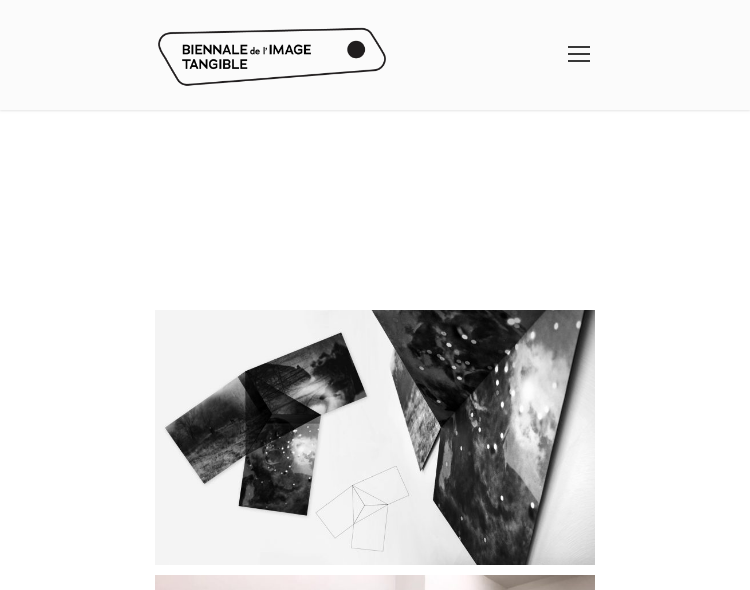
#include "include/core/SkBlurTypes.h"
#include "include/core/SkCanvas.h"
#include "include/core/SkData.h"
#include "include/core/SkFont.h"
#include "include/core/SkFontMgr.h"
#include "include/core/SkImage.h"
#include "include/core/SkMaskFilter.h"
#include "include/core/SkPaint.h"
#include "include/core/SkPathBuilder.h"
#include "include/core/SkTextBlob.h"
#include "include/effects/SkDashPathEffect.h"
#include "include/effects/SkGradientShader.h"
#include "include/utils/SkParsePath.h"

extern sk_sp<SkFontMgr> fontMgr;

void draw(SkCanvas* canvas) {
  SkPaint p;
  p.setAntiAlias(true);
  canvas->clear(SK_ColorWHITE);
  p.setColor(SkColorSetARGB(26, 0, 0, 0));
  p.setMaskFilter(SkMaskFilter::MakeBlur(kNormal_SkBlurStyle, 1));
  canvas->drawRect(SkRect::MakeLTRB(0, 1, 750, 111), p);
  p.setMaskFilter(nullptr);
  p.setColor(SkColorSetRGB(251, 251, 251));
  canvas->drawRect(SkRect::MakeLTRB(0, 0, 750, 110), p);
  canvas->drawImageRect(SkImages::DeferredFromEncodedData(SkData::MakeFromFileName("images/1.png")), SkRect::MakeLTRB(158, 27, 386, 86), SkSamplingOptions());
  p.setColor(SkColorSetRGB(56, 56, 56));
  canvas->drawRect(SkRect::MakeLTRB(568, 46, 590, 48), p);
  canvas->drawRect(SkRect::MakeLTRB(568, 53, 590, 55), p);
  canvas->drawRect(SkRect::MakeLTRB(568, 60, 590, 62), p);
  canvas->drawImageRect(SkImages::DeferredFromEncodedData(SkData::MakeFromFileName("images/2.png")), SkRect::MakeLTRB(155, 310, 595, 565), SkSamplingOptions());
  canvas->drawImageRect(SkImages::DeferredFromEncodedData(SkData::MakeFromFileName("images/3.png")), SkRect::MakeLTRB(155, 575, 595, 590), SkSamplingOptions());
}
